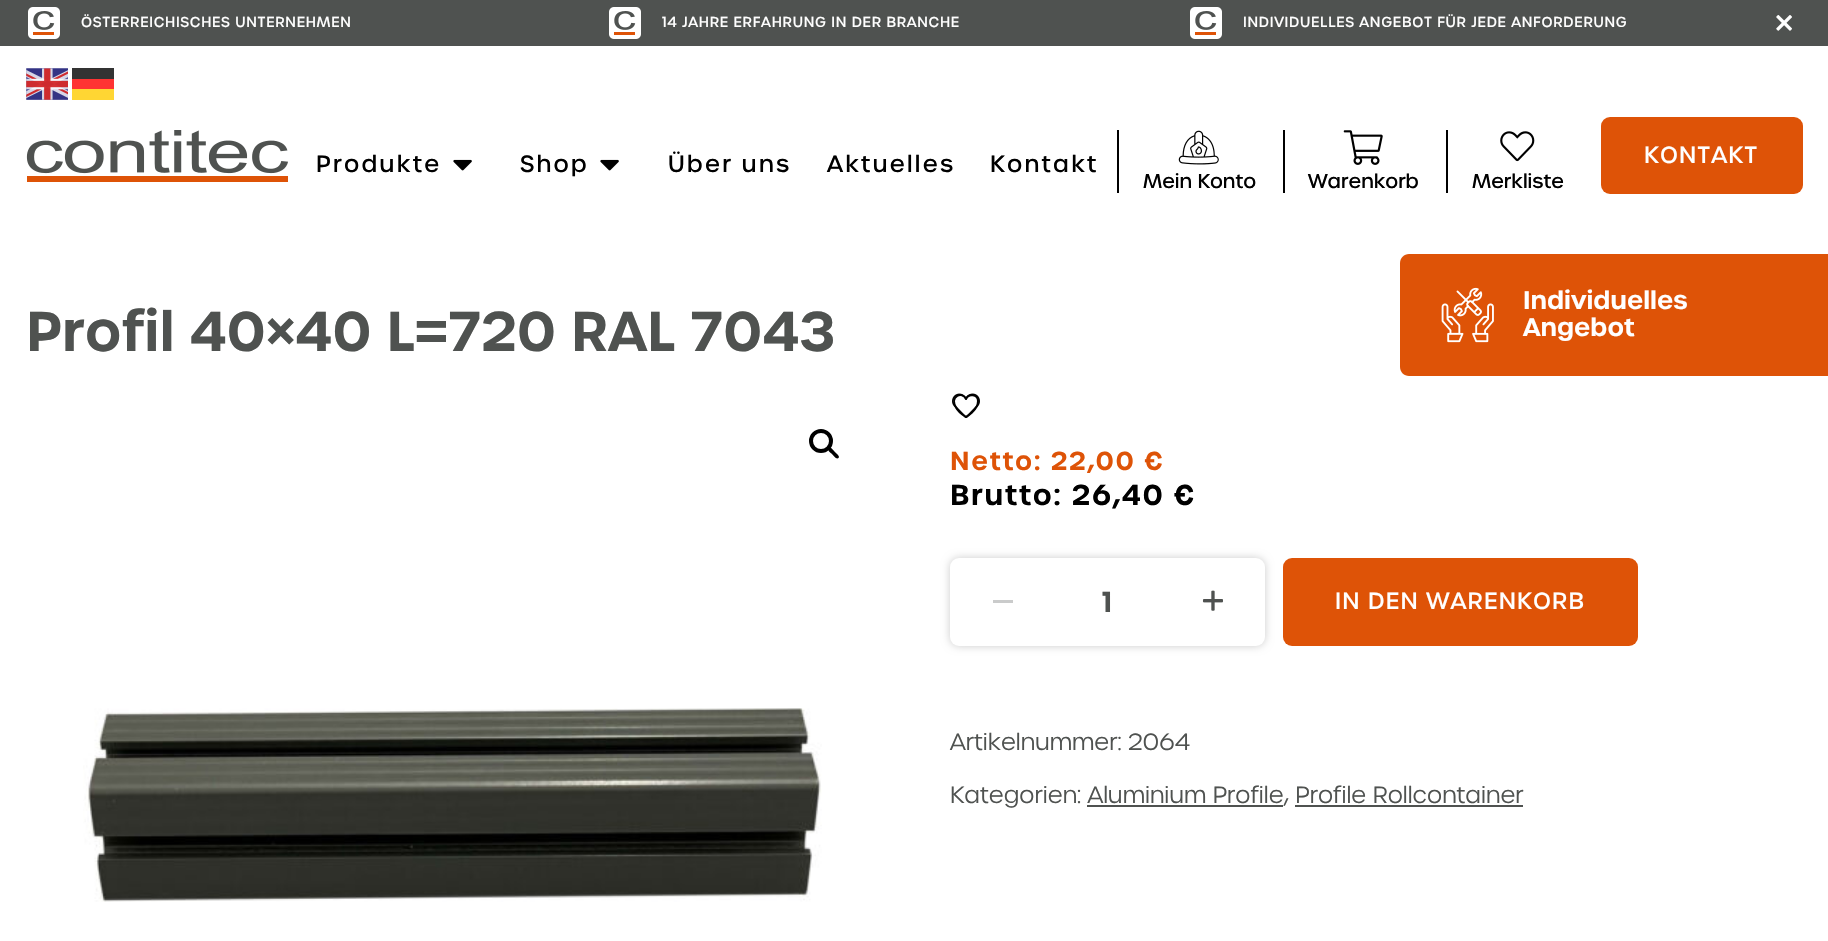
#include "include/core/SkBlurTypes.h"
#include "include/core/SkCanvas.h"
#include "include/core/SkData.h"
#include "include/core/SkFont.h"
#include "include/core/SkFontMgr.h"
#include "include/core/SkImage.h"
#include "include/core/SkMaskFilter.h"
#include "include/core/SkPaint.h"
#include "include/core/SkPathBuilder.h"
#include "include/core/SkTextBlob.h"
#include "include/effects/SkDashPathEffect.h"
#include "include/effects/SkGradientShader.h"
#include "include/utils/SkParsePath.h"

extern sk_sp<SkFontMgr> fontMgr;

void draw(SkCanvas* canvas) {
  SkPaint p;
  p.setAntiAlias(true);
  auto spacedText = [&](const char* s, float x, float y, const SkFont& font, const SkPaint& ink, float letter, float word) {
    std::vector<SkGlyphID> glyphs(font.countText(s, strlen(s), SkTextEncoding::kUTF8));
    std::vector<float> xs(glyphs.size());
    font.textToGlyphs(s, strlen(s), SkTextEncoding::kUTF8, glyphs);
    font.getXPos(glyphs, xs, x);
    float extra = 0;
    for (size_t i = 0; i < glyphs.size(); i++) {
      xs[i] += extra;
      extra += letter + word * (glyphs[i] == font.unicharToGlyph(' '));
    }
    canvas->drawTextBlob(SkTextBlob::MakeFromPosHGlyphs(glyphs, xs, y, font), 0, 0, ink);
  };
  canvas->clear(SK_ColorWHITE);
  p.setColor(SkColorSetRGB(79, 82, 80));
  canvas->drawRect(SkRect::MakeLTRB(0, 0, 1828, 46), p);
  canvas->drawImageRect(SkImages::DeferredFromEncodedData(SkData::MakeFromFileName("images/1.png")), SkRect::MakeLTRB(28, 7, 60, 39), SkSamplingOptions());
  canvas->drawImageRect(SkImages::DeferredFromEncodedData(SkData::MakeFromFileName("images/1.png")), SkRect::MakeLTRB(609, 7, 641, 39), SkSamplingOptions());
  canvas->drawImageRect(SkImages::DeferredFromEncodedData(SkData::MakeFromFileName("images/1.png")), SkRect::MakeLTRB(1190, 7, 1222, 39), SkSamplingOptions());
  canvas->drawImageRect(SkImages::DeferredFromEncodedData(SkData::MakeFromFileName("images/2.png")), SkRect::MakeLTRB(1776, 15, 1792, 31), SkSamplingOptions());
  canvas->drawImageRect(SkImages::DeferredFromEncodedData(SkData::MakeFromFileName("images/3.png")), SkRect::MakeLTRB(26, 68, 68, 100), SkSamplingOptions());
  p.setColor(SkColorSetRGB(51, 51, 51));
  canvas->drawRect(SkRect::MakeLTRB(72, 68, 114, 79), p);
  p.setColor(SkColorSetRGB(255, 51, 51));
  canvas->drawRect(SkRect::MakeLTRB(72, 79, 114, 89), p);
  p.setColor(SkColorSetRGB(255, 214, 51));
  canvas->drawRect(SkRect::MakeLTRB(72, 89, 114, 100), p);
  canvas->drawImageRect(SkImages::DeferredFromEncodedData(SkData::MakeFromFileName("images/4.png")), SkRect::MakeLTRB(26, 130, 288, 182), SkSamplingOptions());
  canvas->drawImageRect(SkImages::DeferredFromEncodedData(SkData::MakeFromFileName("images/5.png")), SkRect::MakeLTRB(453, 159, 472, 171), SkSamplingOptions());
  canvas->drawImageRect(SkImages::DeferredFromEncodedData(SkData::MakeFromFileName("images/5.png")), SkRect::MakeLTRB(600, 159, 619, 171), SkSamplingOptions());
  p.setColor(SkColorSetRGB(222, 83, 7));
  canvas->drawRoundRect(SkRect::MakeLTRB(1601, 117, 1803, 194), 9, 9, p);
  p.setColor(SK_ColorBLACK);
  canvas->drawRect(SkRect::MakeLTRB(1117, 130, 1119, 193), p);
  canvas->drawImageRect(SkImages::DeferredFromEncodedData(SkData::MakeFromFileName("images/6.png")), SkRect::MakeLTRB(1178, 130, 1219, 165), SkSamplingOptions());
  canvas->drawRect(SkRect::MakeLTRB(1283, 130, 1285, 193), p);
  canvas->drawImageRect(SkImages::DeferredFromEncodedData(SkData::MakeFromFileName("images/7.png")), SkRect::MakeLTRB(1343, 130, 1383, 165), SkSamplingOptions());
  canvas->drawRect(SkRect::MakeLTRB(1446, 130, 1448, 193), p);
  canvas->drawImageRect(SkImages::DeferredFromEncodedData(SkData::MakeFromFileName("images/8.png")), SkRect::MakeLTRB(1500, 131, 1535, 162), SkSamplingOptions());
  p.setStyle(SkPaint::kStroke_Style);
  p.setStrokeWidth(4);
  canvas->drawCircle(821, 441, 10, p);
  p.setStyle(SkPaint::kFill_Style);
  canvas->drawPath(SkPathBuilder().moveTo(828.5f, 448).cubicTo(830.5f, 446, 833.5f, 450.5f, 834.5f, 451.5f).cubicTo(835.5f, 453, 840.5f, 456, 838.5f, 458).cubicTo(836.5f, 460, 833, 455, 832, 454).cubicTo(831, 453, 826.5f, 450, 828.5f, 448).close().detach(), p);
  canvas->drawImageRect(SkImages::DeferredFromEncodedData(SkData::MakeFromFileName("images/9.png")), SkRect::MakeLTRB(83, 708, 822, 902), SkSamplingOptions());
  p.setStyle(SkPaint::kStroke_Style);
  p.setStrokeWidth(2);
  p.setStrokeCap(SkPaint::kRound_Cap);
  p.setStrokeJoin(SkPaint::kRound_Join);
  canvas->drawPath(SkPathBuilder().moveTo(978, 401).cubicTo(978, 394.5f, 968.5f, 393, 966, 399).cubicTo(962.5f, 391, 949.5f, 396, 956, 407.5f).cubicTo(958, 411.5f, 962, 414.5f, 966, 417).cubicTo(966, 417, 978, 410.5f, 978, 401).close().detach(), p);
  canvas->drawImageRect(SkImages::DeferredFromEncodedData(SkData::MakeFromFileName("images/10.png")), SkRect::MakeLTRB(952, 393, 980, 418), SkSamplingOptions());
  p.setStyle(SkPaint::kFill_Style);
  p.setColor(SkColorSetARGB(51, 0, 0, 0));
  p.setMaskFilter(SkMaskFilter::MakeBlur(kNormal_SkBlurStyle, 4.5f));
  canvas->drawRoundRect(SkRect::MakeLTRB(950, 558, 1265, 646), 9, 9, p);
  p.setMaskFilter(nullptr);
  p.setColor(SK_ColorWHITE);
  canvas->drawRoundRect(SkRect::MakeLTRB(950, 558, 1265, 646), 9, 9, p);
  p.setColor(SkColorSetRGB(202, 203, 203));
  canvas->drawRect(SkRect::MakeLTRB(993, 600, 1013, 603), p);
  canvas->drawImageRect(SkImages::DeferredFromEncodedData(SkData::MakeFromFileName("images/11.png")), SkRect::MakeLTRB(1202, 590, 1223, 611), SkSamplingOptions());
  p.setColor(SkColorSetRGB(222, 83, 7));
  canvas->drawRoundRect(SkRect::MakeLTRB(1283, 558, 1638, 646), 9, 9, p);
  p.setColor(SkColorSetRGB(79, 82, 80));
  canvas->drawRect(SkRect::MakeLTRB(1087, 805, 1283, 807), p);
  canvas->drawRect(SkRect::MakeLTRB(1295, 805, 1523, 807), p);
  p.setColor(SkColorSetRGB(222, 83, 7));
  canvas->drawPath(SkPathBuilder().moveTo(1409, 254).lineTo(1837, 254).lineTo(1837, 376).lineTo(1409, 376).cubicTo(1404, 376, 1400, 372, 1400, 367).lineTo(1400, 263).cubicTo(1400, 258, 1404, 254, 1409, 254).close().detach(), p);
  canvas->drawImageRect(SkImages::DeferredFromEncodedData(SkData::MakeFromFileName("images/12.png")), SkRect::MakeLTRB(1441, 287, 1494, 343), SkSamplingOptions());
  SkFont font1(fontMgr->matchFamilyStyle("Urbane", SkFontStyle(500, SkFontStyle::kNormal_Width, SkFontStyle::kUpright_Slant)), 14);
  font1.setSubpixel(true);
  p.setColor(SK_ColorWHITE);
  spacedText("ÖSTERREICHISCHES UNTERNEHMEN", 81, 27, font1, p, 0.7f, 0);
  spacedText("14 JAHRE ERFAHRUNG IN DER BRANCHE", 662, 27, font1, p, 0.7f, 0);
  spacedText("INDIVIDUELLES ANGEBOT FÜR JEDE ANFORDERUNG", 1243, 27, font1, p, 0.7f, 0);
  SkFont font2(fontMgr->matchFamilyStyle("Urbane", SkFontStyle(500, SkFontStyle::kNormal_Width, SkFontStyle::kUpright_Slant)), 22.75f);
  font2.setSubpixel(true);
  p.setColor(SK_ColorBLACK);
  spacedText("Produkte", 316, 172, font2, p, 2.25f, 0);
  spacedText("Shop", 520, 172, font2, p, 2.25f, 0);
  spacedText("Über uns", 668, 172, font2, p, 2.25f, 0);
  spacedText("Aktuelles", 827, 172, font2, p, 2.25f, 0);
  spacedText("Kontakt", 990, 172, font2, p, 2.25f, 0);
  p.setColor(SK_ColorWHITE);
  spacedText("KONTAKT", 1644, 163, font2, p, 1.1f, 0);
  SkFont font3(fontMgr->matchFamilyStyle("Urbane", SkFontStyle(500, SkFontStyle::kNormal_Width, SkFontStyle::kUpright_Slant)), 19.25f);
  font3.setSubpixel(true);
  p.setColor(SK_ColorBLACK);
  canvas->drawString("Mein Konto", 1143, 188, font3, p);
  canvas->drawString("Warenkorb", 1308, 188, font3, p);
  canvas->drawString("Merkliste", 1472, 188, font3, p);
  SkFont font4(fontMgr->matchFamilyStyle("Urbane", SkFontStyle(600, SkFontStyle::kNormal_Width, SkFontStyle::kUpright_Slant)), 54.25f);
  font4.setSubpixel(true);
  p.setColor(SkColorSetRGB(79, 82, 80));
  canvas->drawString("Profil 40×40 L=720 RAL 7043", 26, 351, font4, p);
  SkFont font5(fontMgr->matchFamilyStyle("Urbane", SkFontStyle(600, SkFontStyle::kNormal_Width, SkFontStyle::kUpright_Slant)), 25.25f);
  font5.setSubpixel(true);
  p.setColor(SkColorSetRGB(222, 83, 7));
  spacedText("Netto: 22,00 €", 950, 470, font5, p, 1.7f, 0);
  SkFont font6(fontMgr->matchFamilyStyle("Urbane", SkFontStyle(600, SkFontStyle::kNormal_Width, SkFontStyle::kUpright_Slant)), 28);
  font6.setSubpixel(true);
  p.setColor(SK_ColorBLACK);
  spacedText("Brutto: 26,40 €", 950, 505, font6, p, 1.7f, 0);
  p.setColor(SkColorSetRGB(79, 82, 80));
  spacedText("1", 1102, 612, font6, p, 1.7f, 0);
  p.setColor(SK_ColorWHITE);
  spacedText("IN DEN WARENKORB", 1335, 609, font2, p, 1.1f, 0);
  SkFont font7(fontMgr->matchFamilyStyle("Urbane", SkFontStyle(300, SkFontStyle::kNormal_Width, SkFontStyle::kUpright_Slant)), 22.75f);
  font7.setSubpixel(true);
  p.setColor(SkColorSetRGB(79, 82, 80));
  canvas->drawString("Artikelnummer: 2064", 950, 750, font7, p);
  canvas->drawString("Kategorien: Aluminium Profile", 950, 803, font7, p);
  canvas->drawString(", Profile Rollcontainer", 1284, 803, font7, p);
  SkFont font8(fontMgr->matchFamilyStyle("Urbane", SkFontStyle(600, SkFontStyle::kNormal_Width, SkFontStyle::kUpright_Slant)), 24.5f);
  font8.setSubpixel(true);
  p.setColor(SK_ColorWHITE);
  canvas->drawString("Individuelles", 1523, 309, font8, p);
  canvas->drawString("Angebot", 1523, 336, font8, p);
}
